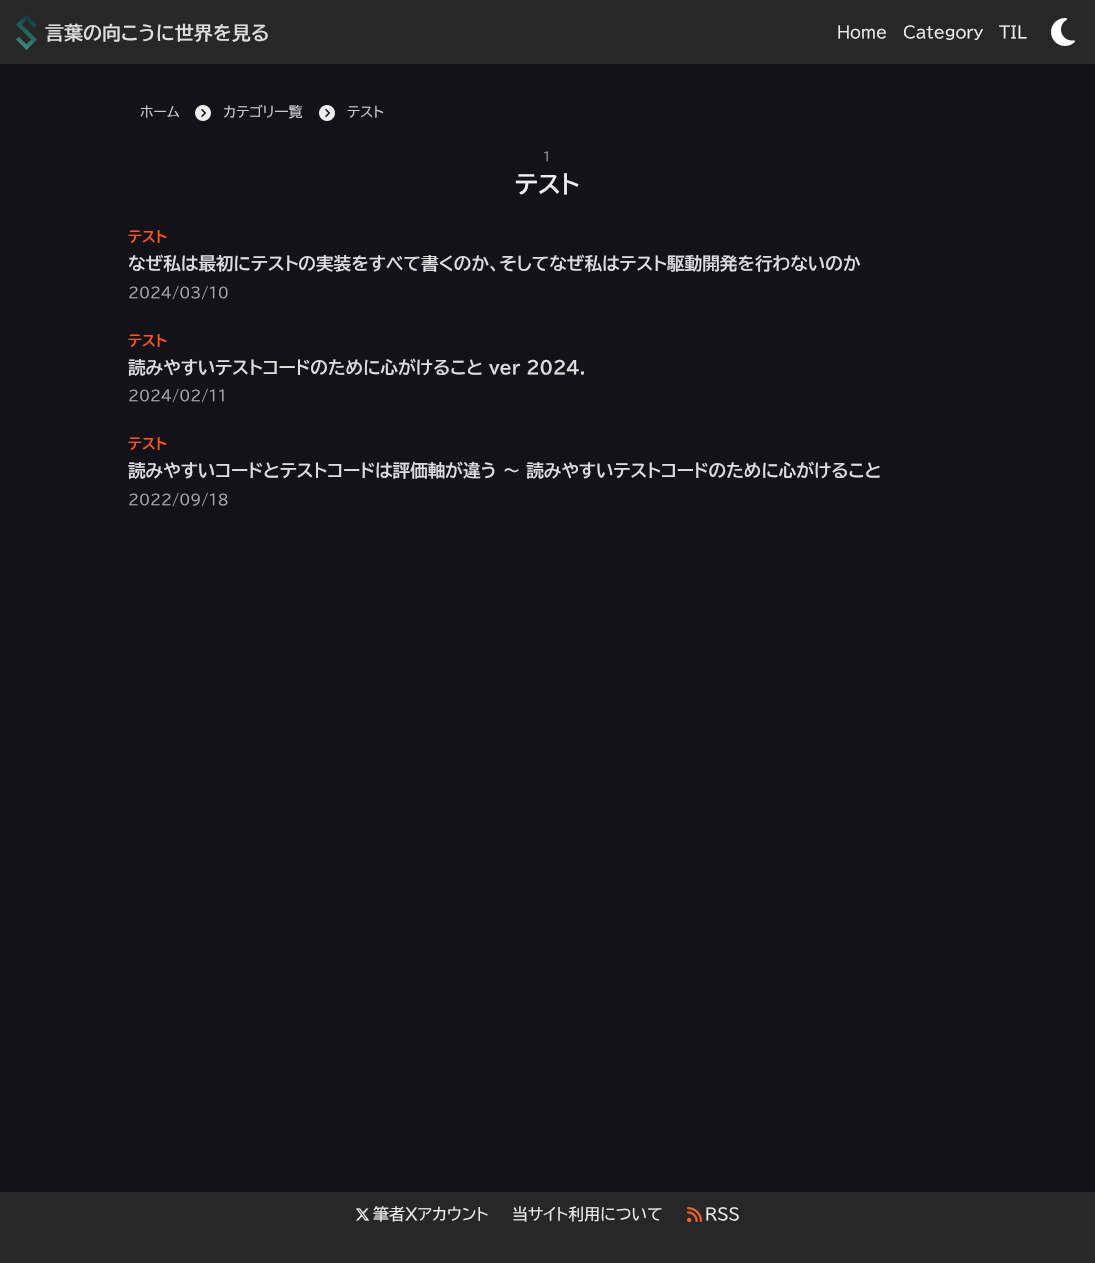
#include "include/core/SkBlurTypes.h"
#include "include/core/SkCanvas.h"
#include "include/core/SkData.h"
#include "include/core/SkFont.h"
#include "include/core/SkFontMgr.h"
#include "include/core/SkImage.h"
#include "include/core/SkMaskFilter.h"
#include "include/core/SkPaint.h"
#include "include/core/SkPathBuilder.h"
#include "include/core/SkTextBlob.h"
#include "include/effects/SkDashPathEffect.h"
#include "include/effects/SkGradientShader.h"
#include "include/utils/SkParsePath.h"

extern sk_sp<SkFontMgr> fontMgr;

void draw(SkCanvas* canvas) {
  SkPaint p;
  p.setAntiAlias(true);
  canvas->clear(SkColorSetRGB(18, 18, 24));
  p.setColor(SkColorSetRGB(39, 39, 39));
  canvas->drawRect(SkRect::MakeLTRB(0, 0, 1095, 64), p);
  canvas->drawImageRect(SkImages::DeferredFromEncodedData(SkData::MakeFromFileName("images/1.png")), SkRect::MakeLTRB(16, 14, 37, 50), SkSamplingOptions());
  canvas->drawImageRect(SkImages::DeferredFromEncodedData(SkData::MakeFromFileName("images/2.png")), SkRect::MakeLTRB(1051, 18, 1075, 46), SkSamplingOptions());
  canvas->drawImageRect(SkImages::DeferredFromEncodedData(SkData::MakeFromFileName("images/3.png")), SkRect::MakeLTRB(195, 105, 211, 121), SkSamplingOptions());
  canvas->drawImageRect(SkImages::DeferredFromEncodedData(SkData::MakeFromFileName("images/3.png")), SkRect::MakeLTRB(319, 105, 335, 121), SkSamplingOptions());
  canvas->drawRect(SkRect::MakeLTRB(0, 1192, 1095, 1263), p);
  canvas->drawImageRect(SkImages::DeferredFromEncodedData(SkData::MakeFromFileName("images/4.png")), SkRect::MakeLTRB(355, 1208, 370, 1221), SkSamplingOptions());
  canvas->drawImageRect(SkImages::DeferredFromEncodedData(SkData::MakeFromFileName("images/5.png")), SkRect::MakeLTRB(687, 1207, 702, 1223), SkSamplingOptions());
  SkFont font1(fontMgr->matchFamilyStyle("BIZ UDPGothic", SkFontStyle::Bold()), 19);
  font1.setSubpixel(true);
  p.setColor(SkColorSetRGB(221, 221, 221));
  canvas->drawString("言葉の向こうに世界を見る", 45, 40, font1, p);
  SkFont font2(fontMgr->matchFamilyStyle("BIZ UDPGothic", SkFontStyle::Normal()), 16);
  font2.setSubpixel(true);
  p.setColor(SkColorSetRGB(238, 238, 238));
  canvas->drawString("Home", 837, 38, font2, p);
  canvas->drawString("Category", 903, 38, font2, p);
  canvas->drawString("TIL", 999, 38, font2, p);
  SkFont font3(fontMgr->matchFamilyStyle("BIZ UDPGothic", SkFontStyle::Normal()), 14);
  font3.setSubpixel(true);
  p.setColor(SkColorSetRGB(204, 204, 204));
  canvas->drawString("ホーム", 140, 117, font3, p);
  canvas->drawString("カテゴリ一覧", 223, 117, font3, p);
  canvas->drawString("テスト", 347, 117, font3, p);
  SkFont font4(fontMgr->matchFamilyStyle("BIZ UDPGothic", SkFontStyle::Normal()), 12);
  font4.setSubpixel(true);
  p.setColor(SkColorSetRGB(160, 160, 163));
  canvas->drawString("1", 543, 161, font4, p);
  SkFont font5(fontMgr->matchFamilyStyle("BIZ UDPGothic", SkFontStyle::Bold()), 24);
  font5.setSubpixel(true);
  p.setColor(SkColorSetRGB(238, 238, 238));
  canvas->drawString("テスト", 515, 193, font5, p);
  SkFont font6(fontMgr->matchFamilyStyle("BIZ UDPGothic", SkFontStyle::Bold()), 14.5f);
  font6.setSubpixel(true);
  p.setColor(SkColorSetRGB(255, 87, 34));
  canvas->drawString("テスト", 128, 242, font6, p);
  SkFont font7(fontMgr->matchFamilyStyle("BIZ UDPGothic", SkFontStyle::Bold()), 17.6f);
  font7.setSubpixel(true);
  p.setColor(SkColorSetRGB(221, 221, 221));
  canvas->drawString("なぜ私は最初にテストの実装をすべて書くのか、そしてなぜ私はテスト駆動開発を行わないのか", 128, 270, font7, p);
  SkFont font8(fontMgr->matchFamilyStyle("BIZ UDPGothic", SkFontStyle::Normal()), 14.5f);
  font8.setSubpixel(true);
  p.setColor(SkColorSetRGB(170, 170, 170));
  canvas->drawString("2024/03/10", 128, 298, font8, p);
  p.setColor(SkColorSetRGB(255, 87, 34));
  canvas->drawString("テスト", 128, 346, font6, p);
  p.setColor(SkColorSetRGB(221, 221, 221));
  canvas->drawString("読みやすいテストコードのために心がけること ver 2024.", 128, 374, font7, p);
  p.setColor(SkColorSetRGB(170, 170, 170));
  canvas->drawString("2024/02/11", 128, 401, font8, p);
  p.setColor(SkColorSetRGB(255, 87, 34));
  canvas->drawString("テスト", 128, 449, font6, p);
  p.setColor(SkColorSetRGB(221, 221, 221));
  canvas->drawString("読みやすいコードとテストコードは評価軸が違う 〜 読みやすいテストコードのために心がけること", 128, 477, font7, p);
  p.setColor(SkColorSetRGB(170, 170, 170));
  canvas->drawString("2022/09/18", 128, 505, font8, p);
  p.setColor(SkColorSetRGB(238, 238, 238));
  canvas->drawString("筆者Xアカウント", 373, 1220, font2, p);
  canvas->drawString("当サイト利用について", 512, 1220, font2, p);
  canvas->drawString("RSS", 705, 1220, font2, p);
}
